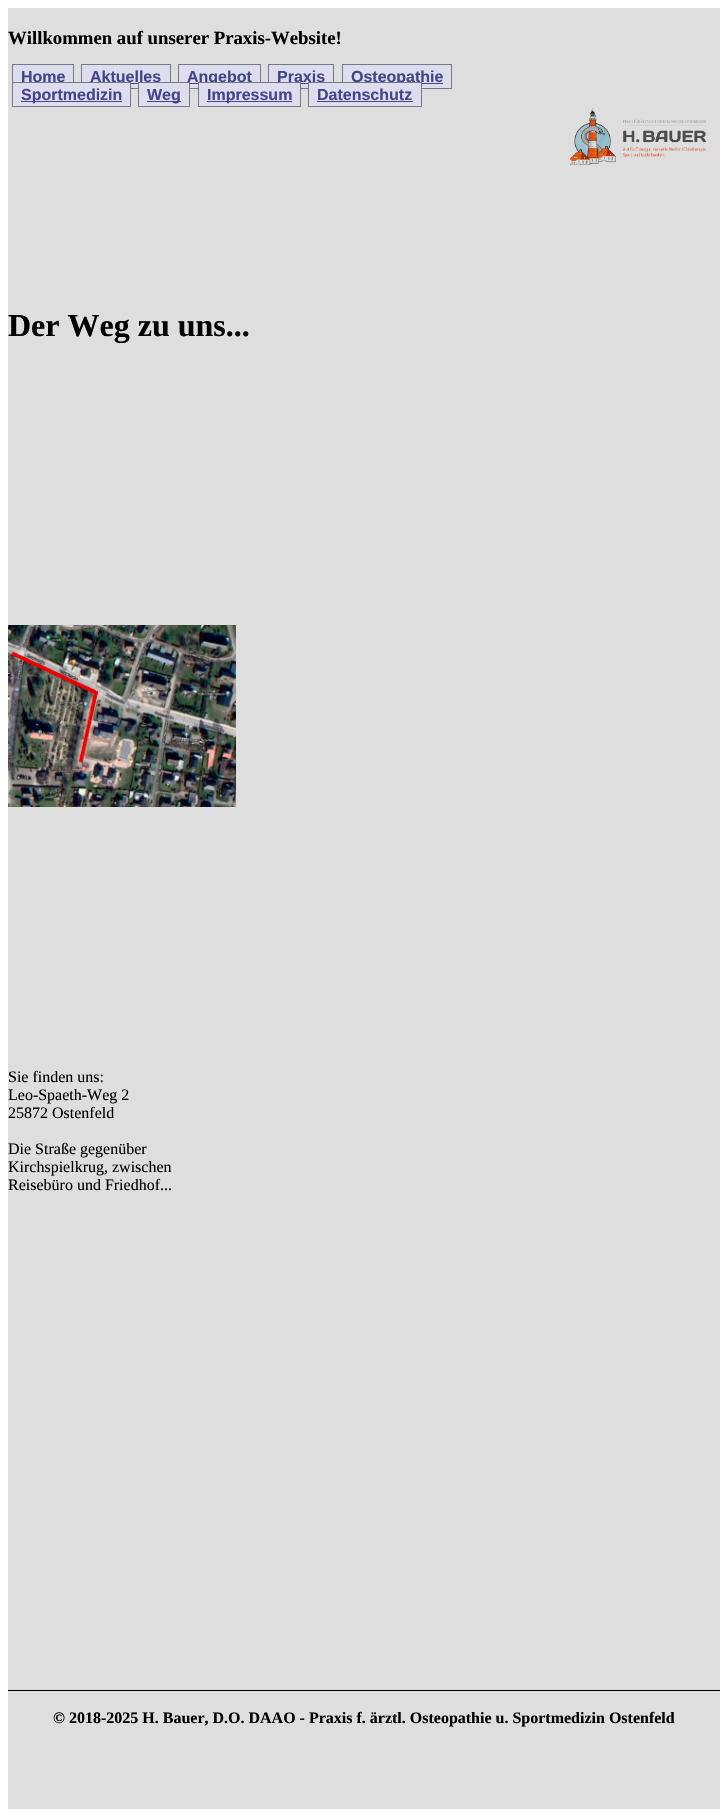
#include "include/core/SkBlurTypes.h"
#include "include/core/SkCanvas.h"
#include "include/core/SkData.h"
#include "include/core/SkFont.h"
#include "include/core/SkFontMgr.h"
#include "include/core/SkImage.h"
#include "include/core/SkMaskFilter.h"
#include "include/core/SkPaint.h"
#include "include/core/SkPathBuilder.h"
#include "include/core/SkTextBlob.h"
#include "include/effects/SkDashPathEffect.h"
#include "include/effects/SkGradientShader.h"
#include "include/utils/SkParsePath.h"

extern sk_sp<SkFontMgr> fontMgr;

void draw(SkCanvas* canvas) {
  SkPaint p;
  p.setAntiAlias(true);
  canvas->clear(SK_ColorWHITE);
  p.setColor(SkColorSetRGB(222, 222, 222));
  canvas->drawRect(SkRect::MakeLTRB(8, 8, 720, 1809), p);
  p.setColor(SkColorSetRGB(221, 221, 238));
  canvas->drawRect(SkRect::MakeLTRB(13, 65, 73, 82), p);
  p.setStyle(SkPaint::kStroke_Style);
  p.setStrokeWidth(1);
  p.setColor(SkColorSetRGB(119, 119, 136));
  canvas->drawRect(SkRect::MakeLTRB(12.5f, 64.5f, 73.5f, 88.5f), p);
  p.setStyle(SkPaint::kFill_Style);
  p.setColor(SkColorSetRGB(221, 221, 238));
  canvas->drawRect(SkRect::MakeLTRB(81.5f, 64.5f, 170.5f, 88.5f), p);
  p.setStyle(SkPaint::kStroke_Style);
  p.setColor(SkColorSetRGB(119, 119, 136));
  canvas->drawRect(SkRect::MakeLTRB(81.5f, 64.5f, 170.5f, 88.5f), p);
  p.setStyle(SkPaint::kFill_Style);
  p.setColor(SkColorSetRGB(68, 68, 136));
  canvas->drawRect(SkRect::MakeLTRB(131, 83, 138, 84), p);
  p.setColor(SkColorSetRGB(221, 221, 238));
  canvas->drawRect(SkRect::MakeLTRB(178.5f, 64.5f, 260.5f, 88.5f), p);
  p.setStyle(SkPaint::kStroke_Style);
  p.setColor(SkColorSetRGB(119, 119, 136));
  canvas->drawRect(SkRect::MakeLTRB(178.5f, 64.5f, 260.5f, 88.5f), p);
  p.setStyle(SkPaint::kFill_Style);
  p.setColor(SkColorSetRGB(68, 68, 136));
  canvas->drawRect(SkRect::MakeLTRB(187, 83, 198, 84), p);
  p.setColor(SkColorSetRGB(221, 221, 238));
  canvas->drawRect(SkRect::MakeLTRB(268.5f, 64.5f, 333.5f, 88.5f), p);
  p.setStyle(SkPaint::kStroke_Style);
  p.setColor(SkColorSetRGB(119, 119, 136));
  canvas->drawRect(SkRect::MakeLTRB(268.5f, 64.5f, 333.5f, 88.5f), p);
  p.setStyle(SkPaint::kFill_Style);
  p.setColor(SkColorSetRGB(68, 68, 136));
  canvas->drawRect(SkRect::MakeLTRB(301, 83, 308, 84), p);
  p.setColor(SkColorSetRGB(221, 221, 238));
  canvas->drawRect(SkRect::MakeLTRB(342.5f, 64.5f, 451.5f, 88.5f), p);
  p.setStyle(SkPaint::kStroke_Style);
  p.setColor(SkColorSetRGB(119, 119, 136));
  canvas->drawRect(SkRect::MakeLTRB(342.5f, 64.5f, 451.5f, 88.5f), p);
  p.setStyle(SkPaint::kFill_Style);
  p.setColor(SkColorSetRGB(68, 68, 136));
  canvas->drawRect(SkRect::MakeLTRB(422, 83, 443, 84), p);
  canvas->drawImageRect(SkImages::DeferredFromEncodedData(SkData::MakeFromFileName("images/1.png")), SkRect::MakeLTRB(570, 108, 706, 165), SkSamplingOptions());
  canvas->drawImageRect(SkImages::DeferredFromEncodedData(SkData::MakeFromFileName("images/2.png")), SkRect::MakeLTRB(8, 625, 236, 807), SkSamplingOptions());
  p.setColor(SK_ColorBLACK);
  canvas->drawRect(SkRect::MakeLTRB(8, 1690, 720, 1691), p);
  SkFont font1(fontMgr->matchFamilyStyle("Liberation Serif", SkFontStyle::Bold()), 18.75f);
  font1.setSubpixel(true);
  canvas->drawString("Willkommen auf unserer Praxis-Website!", 8, 44, font1, p);
  SkFont font2(fontMgr->matchFamilyStyle("Liberation Sans", SkFontStyle::Bold()), 16);
  font2.setSubpixel(true);
  p.setColor(SkColorSetRGB(68, 68, 136));
  canvas->drawString("Home", 21, 82, font2, p);
  canvas->drawString("Aktuelles", 90, 82, font2, p);
  canvas->drawString("Angebot", 187, 82, font2, p);
  canvas->drawString("Praxis", 277, 82, font2, p);
  canvas->drawString("Osteopathie", 351, 82, font2, p);
  p.setColor(SkColorSetRGB(221, 221, 238));
  canvas->drawRect(SkRect::MakeLTRB(12.5f, 82.5f, 130.5f, 106.5f), p);
  p.setStyle(SkPaint::kStroke_Style);
  p.setColor(SkColorSetRGB(119, 119, 136));
  canvas->drawRect(SkRect::MakeLTRB(12.5f, 82.5f, 130.5f, 106.5f), p);
  p.setStyle(SkPaint::kFill_Style);
  p.setColor(SkColorSetRGB(68, 68, 136));
  canvas->drawRect(SkRect::MakeLTRB(21, 101, 122, 102), p);
  canvas->drawString("Sportmedizin", 21, 100, font2, p);
  p.setColor(SkColorSetRGB(221, 221, 238));
  canvas->drawRect(SkRect::MakeLTRB(138.5f, 82.5f, 189.5f, 106.5f), p);
  p.setStyle(SkPaint::kStroke_Style);
  p.setColor(SkColorSetRGB(119, 119, 136));
  canvas->drawRect(SkRect::MakeLTRB(138.5f, 82.5f, 189.5f, 106.5f), p);
  p.setStyle(SkPaint::kFill_Style);
  p.setColor(SkColorSetRGB(68, 68, 136));
  canvas->drawRect(SkRect::MakeLTRB(147, 101, 181, 102), p);
  canvas->drawString("Weg", 147, 100, font2, p);
  p.setColor(SkColorSetRGB(221, 221, 238));
  canvas->drawRect(SkRect::MakeLTRB(198.5f, 82.5f, 300.5f, 106.5f), p);
  p.setStyle(SkPaint::kStroke_Style);
  p.setColor(SkColorSetRGB(119, 119, 136));
  canvas->drawRect(SkRect::MakeLTRB(198.5f, 82.5f, 300.5f, 106.5f), p);
  p.setStyle(SkPaint::kFill_Style);
  p.setColor(SkColorSetRGB(68, 68, 136));
  canvas->drawRect(SkRect::MakeLTRB(207, 101, 292, 102), p);
  canvas->drawString("Impressum", 207, 100, font2, p);
  p.setColor(SkColorSetRGB(221, 221, 238));
  canvas->drawRect(SkRect::MakeLTRB(308.5f, 82.5f, 421.5f, 106.5f), p);
  p.setStyle(SkPaint::kStroke_Style);
  p.setColor(SkColorSetRGB(119, 119, 136));
  canvas->drawRect(SkRect::MakeLTRB(308.5f, 82.5f, 421.5f, 106.5f), p);
  p.setStyle(SkPaint::kFill_Style);
  p.setColor(SkColorSetRGB(68, 68, 136));
  canvas->drawString("Datenschutz", 317, 100, font2, p);
  canvas->drawRect(SkRect::MakeLTRB(317, 101, 413, 102), p);
  SkFont font3(fontMgr->matchFamilyStyle("Liberation Serif", SkFontStyle::Bold()), 32);
  font3.setSubpixel(true);
  p.setColor(SK_ColorBLACK);
  canvas->drawString("Der Weg zu uns...", 8, 336, font3, p);
  SkFont font4(fontMgr->matchFamilyStyle("Liberation Serif", SkFontStyle::Normal()), 16);
  font4.setSubpixel(true);
  canvas->drawString("Sie finden uns:", 8, 1082, font4, p);
  canvas->drawString("Leo-Spaeth-Weg 2", 8, 1100, font4, p);
  canvas->drawString("25872 Ostenfeld", 8, 1118, font4, p);
  canvas->drawString("Die Straße gegenüber", 8, 1154, font4, p);
  canvas->drawString("Kirchspielkrug, zwischen", 8, 1172, font4, p);
  canvas->drawString("Reisebüro und Friedhof...", 8, 1190, font4, p);
  SkFont font5(fontMgr->matchFamilyStyle("Liberation Serif", SkFontStyle::Bold()), 16);
  font5.setSubpixel(true);
  canvas->drawString("© 2018-2025 H. Bauer, D.O. DAAO - Praxis f. ärztl. Osteopathie u. Sportmedizin Ostenfeld", 53, 1723, font5, p);
}
